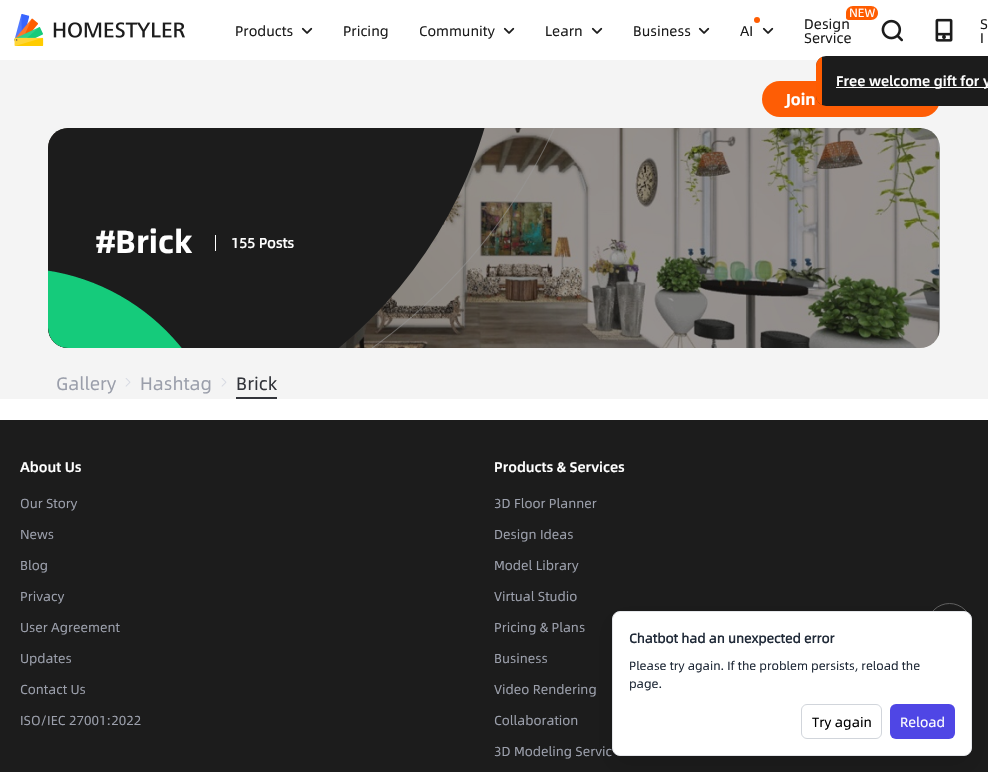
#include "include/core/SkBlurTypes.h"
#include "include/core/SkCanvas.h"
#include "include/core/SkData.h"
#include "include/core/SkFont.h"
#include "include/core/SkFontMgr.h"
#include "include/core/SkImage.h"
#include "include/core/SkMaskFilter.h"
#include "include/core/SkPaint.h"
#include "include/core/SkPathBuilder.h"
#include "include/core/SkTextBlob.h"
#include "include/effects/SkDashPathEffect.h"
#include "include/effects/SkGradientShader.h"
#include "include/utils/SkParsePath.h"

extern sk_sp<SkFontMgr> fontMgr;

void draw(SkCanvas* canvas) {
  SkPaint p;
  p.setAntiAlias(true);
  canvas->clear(SK_ColorWHITE);
  canvas->drawImageRect(SkImages::DeferredFromEncodedData(SkData::MakeFromFileName("images/1.png")), SkRect::MakeLTRB(14, 14, 185, 46), SkSamplingOptions());
  canvas->drawImageRect(SkImages::DeferredFromEncodedData(SkData::MakeFromFileName("images/2.png")), SkRect::MakeLTRB(301, 27, 313, 34), SkSamplingOptions());
  canvas->drawImageRect(SkImages::DeferredFromEncodedData(SkData::MakeFromFileName("images/2.png")), SkRect::MakeLTRB(503, 27, 515, 34), SkSamplingOptions());
  canvas->drawImageRect(SkImages::DeferredFromEncodedData(SkData::MakeFromFileName("images/2.png")), SkRect::MakeLTRB(591, 27, 603, 34), SkSamplingOptions());
  canvas->drawImageRect(SkImages::DeferredFromEncodedData(SkData::MakeFromFileName("images/2.png")), SkRect::MakeLTRB(698, 27, 710, 34), SkSamplingOptions());
  p.setColor(SkColorSetRGB(255, 92, 0));
  canvas->drawCircle(757, 20, 3, p);
  canvas->drawImageRect(SkImages::DeferredFromEncodedData(SkData::MakeFromFileName("images/2.png")), SkRect::MakeLTRB(762, 27, 774, 34), SkSamplingOptions());
  canvas->drawImageRect(SkImages::DeferredFromEncodedData(SkData::MakeFromFileName("images/3.png")), SkRect::MakeLTRB(881, 19, 903, 42), SkSamplingOptions());
  canvas->drawImageRect(SkImages::DeferredFromEncodedData(SkData::MakeFromFileName("images/4.png")), SkRect::MakeLTRB(935, 18, 953, 42), SkSamplingOptions());
  p.setColor(SkColorSetRGB(244, 244, 244));
  canvas->drawRect(SkRect::MakeLTRB(0, 60, 988, 399), p);
  p.setColor(SkColorSetRGB(254, 93, 5));
  canvas->drawRoundRect(SkRect::MakeLTRB(762, 81, 940, 117), 18, 18, p);
  p.setColor(SkColorSetRGB(28, 28, 28));
  canvas->drawRoundRect(SkRect::MakeLTRB(816, 56, 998, 106), 10, 10, p);
  canvas->save();
  canvas->clipPath(SkPathBuilder().moveTo(826, 56).lineTo(1060, 56).cubicTo(1065.5f, 56, 1070, 60.5f, 1070, 66).lineTo(1070, 96).cubicTo(1070, 101.5f, 1065.5f, 106, 1060, 106).lineTo(826, 106).cubicTo(820.5f, 106, 816, 101.5f, 816, 96).lineTo(816, 66).cubicTo(816, 60.5f, 820.5f, 56, 826, 56).close().detach(), true);
  p.setColor(SkColorSetRGB(255, 92, 0));
  canvas->drawRect(SkRect::MakeLTRB(816, 56, 822, 106), p);
  canvas->restore();
  p.setColor(SK_ColorWHITE);
  canvas->drawRect(SkRect::MakeLTRB(836, 87, 988, 88), p);
  canvas->drawImageRect(SkImages::DeferredFromEncodedData(SkData::MakeFromFileName("images/5.png")), SkRect::MakeLTRB(48, 128, 940, 348), SkSamplingOptions());
  p.setColor(SkColorSetARGB(102, 0, 0, 0));
  canvas->drawRoundRect(SkRect::MakeLTRB(48, 128, 940, 348), 20, 20, p);
  canvas->drawImageRect(SkImages::DeferredFromEncodedData(SkData::MakeFromFileName("images/6.png")), SkRect::MakeLTRB(48, 128, 555, 348), SkSamplingOptions());
  canvas->drawImageRect(SkImages::DeferredFromEncodedData(SkData::MakeFromFileName("images/7.png")), SkRect::MakeLTRB(48, 270, 182, 348), SkSamplingOptions());
  p.setColor(SK_ColorWHITE);
  canvas->drawRect(SkRect::MakeLTRB(215, 235, 216, 251), p);
  canvas->drawImageRect(SkImages::DeferredFromEncodedData(SkData::MakeFromFileName("images/8.png")), SkRect::MakeLTRB(125, 378, 131, 387), SkSamplingOptions());
  canvas->drawImageRect(SkImages::DeferredFromEncodedData(SkData::MakeFromFileName("images/8.png")), SkRect::MakeLTRB(221, 378, 227, 387), SkSamplingOptions());
  p.setColor(SkColorSetRGB(51, 53, 59));
  canvas->drawRect(SkRect::MakeLTRB(236, 397, 277, 399), p);
  p.setColor(SkColorSetRGB(28, 28, 28));
  canvas->drawRect(SkRect::MakeLTRB(0, 420, 988, 772), p);
  p.setStyle(SkPaint::kStroke_Style);
  p.setStrokeWidth(1);
  p.setColor(SkColorSetRGB(96, 96, 96));
  canvas->drawCircle(949.5f, 625.5f, 22, p);
  p.setStyle(SkPaint::kFill_Style);
  p.setColor(SkColorSetARGB(31, 0, 0, 0));
  p.setMaskFilter(SkMaskFilter::MakeBlur(kNormal_SkBlurStyle, 12));
  canvas->drawRoundRect(SkRect::MakeLTRB(612, 619, 972, 764), 8, 8, p);
  p.setMaskFilter(nullptr);
  p.setColor(SK_ColorWHITE);
  canvas->drawRoundRect(SkRect::MakeLTRB(612.5f, 611.5f, 971.5f, 755.5f), 7.5f, 7.5f, p);
  p.setStyle(SkPaint::kStroke_Style);
  p.setColor(SkColorSetRGB(229, 231, 235));
  canvas->drawRoundRect(SkRect::MakeLTRB(612.5f, 611.5f, 971.5f, 755.5f), 7.5f, 7.5f, p);
  p.setColor(SkColorSetRGB(209, 213, 219));
  canvas->drawRoundRect(SkRect::MakeLTRB(801.5f, 704.5f, 881.5f, 738.5f), 5.5f, 5.5f, p);
  p.setStyle(SkPaint::kFill_Style);
  p.setColor(SkColorSetRGB(79, 70, 229));
  canvas->drawRoundRect(SkRect::MakeLTRB(890, 704, 955, 739), 6, 6, p);
  SkFont font1(fontMgr->matchFamilyStyle("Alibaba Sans", SkFontStyle::Normal()), 14);
  font1.setSubpixel(true);
  p.setColor(SkColorSetRGB(28, 28, 28));
  canvas->drawString("Products", 235, 36, font1, p);
  canvas->drawString("Pricing", 343, 36, font1, p);
  canvas->drawString("Community", 419, 36, font1, p);
  canvas->drawString("Learn", 545, 36, font1, p);
  canvas->drawString("Business", 633, 36, font1, p);
  canvas->drawString("AI", 740, 36, font1, p);
  canvas->drawString("Design", 804, 29, font1, p);
  p.setColor(SkColorSetRGB(255, 92, 0));
  canvas->drawPath(SkPathBuilder().moveTo(853, 6).lineTo(871, 6).cubicTo(875, 6, 878, 9, 878, 13).cubicTo(878, 17, 875, 20, 871, 20).lineTo(848.5f, 20).cubicTo(847, 20, 846, 19, 846, 17.5f).lineTo(846, 13).cubicTo(846, 9, 849, 6, 853, 6).close().detach(), p);
  SkFont font2(fontMgr->matchFamilyStyle("Alibaba Sans", SkFontStyle::Normal()), 12);
  font2.setSubpixel(true);
  p.setColor(SK_ColorWHITE);
  canvas->drawString("NEW", 849, 17, font2, p);
  p.setColor(SkColorSetRGB(28, 28, 28));
  canvas->drawString("Service", 804, 43, font1, p);
  canvas->drawString("S", 980, 29, font1, p);
  canvas->drawString("I", 980, 43, font1, p);
  SkFont font3(fontMgr->matchFamilyStyle("Alibaba Sans", SkFontStyle(500, SkFontStyle::kNormal_Width, SkFontStyle::kUpright_Slant)), 14);
  font3.setSubpixel(true);
  p.setColor(SK_ColorWHITE);
  canvas->drawString("Free welcome gift for y", 836, 86, font3, p);
  SkFont font4(fontMgr->matchFamilyStyle("Alibaba Sans", SkFontStyle::Bold()), 16);
  font4.setSubpixel(true);
  canvas->drawString("Join", 786, 105, font4, p);
  SkFont font5(fontMgr->matchFamilyStyle("Alibaba Sans", SkFontStyle::Bold()), 32);
  font5.setSubpixel(true);
  canvas->drawString("#Brick", 96, 253, font5, p);
  SkFont font6(fontMgr->matchFamilyStyle("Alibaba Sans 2", SkFontStyle::Bold()), 14);
  font6.setSubpixel(true);
  canvas->drawString("155 Posts", 231, 248, font6, p);
  SkFont font7(fontMgr->matchFamilyStyle("Alibaba Sans", SkFontStyle::Normal()), 18);
  font7.setSubpixel(true);
  p.setColor(SkColorSetRGB(155, 159, 171));
  canvas->drawString("Gallery", 56, 390, font7, p);
  canvas->drawString("Hashtag", 140, 390, font7, p);
  p.setColor(SkColorSetRGB(51, 53, 59));
  canvas->drawString("Brick", 236, 390, font7, p);
  p.setColor(SK_ColorWHITE);
  canvas->drawString("About Us", 20, 472, font3, p);
  SkFont font8(fontMgr->matchFamilyStyle("Alibaba Sans", SkFontStyle::Normal()), 13);
  font8.setSubpixel(true);
  p.setColor(SkColorSetRGB(155, 159, 171));
  canvas->drawString("Our Story", 20, 508, font8, p);
  canvas->drawString("News", 20, 539, font8, p);
  canvas->drawString("Blog", 20, 570, font8, p);
  canvas->drawString("Privacy", 20, 601, font8, p);
  canvas->drawString("User Agreement", 20, 632, font8, p);
  canvas->drawString("Updates", 20, 663, font8, p);
  canvas->drawString("Contact Us", 20, 694, font8, p);
  canvas->drawString("ISO/IEC 27001:2022", 20, 725, font8, p);
  p.setColor(SK_ColorWHITE);
  canvas->drawString("Products & Services", 494, 472, font3, p);
  p.setColor(SkColorSetRGB(155, 159, 171));
  canvas->drawString("3D Floor Planner", 494, 508, font8, p);
  canvas->drawString("Design Ideas", 494, 539, font8, p);
  canvas->drawString("Model Library", 494, 570, font8, p);
  canvas->drawString("Virtual Studio", 494, 601, font8, p);
  canvas->drawString("Pricing & Plans", 494, 632, font8, p);
  canvas->drawString("Business", 494, 663, font8, p);
  canvas->drawString("Video Rendering", 494, 694, font8, p);
  canvas->drawString("Collaboration", 494, 725, font8, p);
  canvas->drawString("3D Modeling Servic", 494, 756, font8, p);
  SkFont font9(fontMgr->matchFamilyStyle("Alibaba Sans 2", SkFontStyle::Bold()), 13);
  font9.setSubpixel(true);
  p.setColor(SkColorSetRGB(31, 41, 55));
  canvas->drawString("Chatbot had an unexpected error", 629, 643, font9, p);
  canvas->drawString("Please try again. If the problem persists, reload the", 629, 670, font2, p);
  canvas->drawString("page.", 629, 688, font2, p);
  SkFont font10(fontMgr->matchFamilyStyle("Alibaba Sans", SkFontStyle::Normal()), 13.5f);
  font10.setSubpixel(true);
  p.setColor(SK_ColorBLACK);
  canvas->drawString("Try again", 812, 727, font10, p);
  p.setColor(SK_ColorWHITE);
  canvas->drawString("Reload", 900, 727, font10, p);
}
